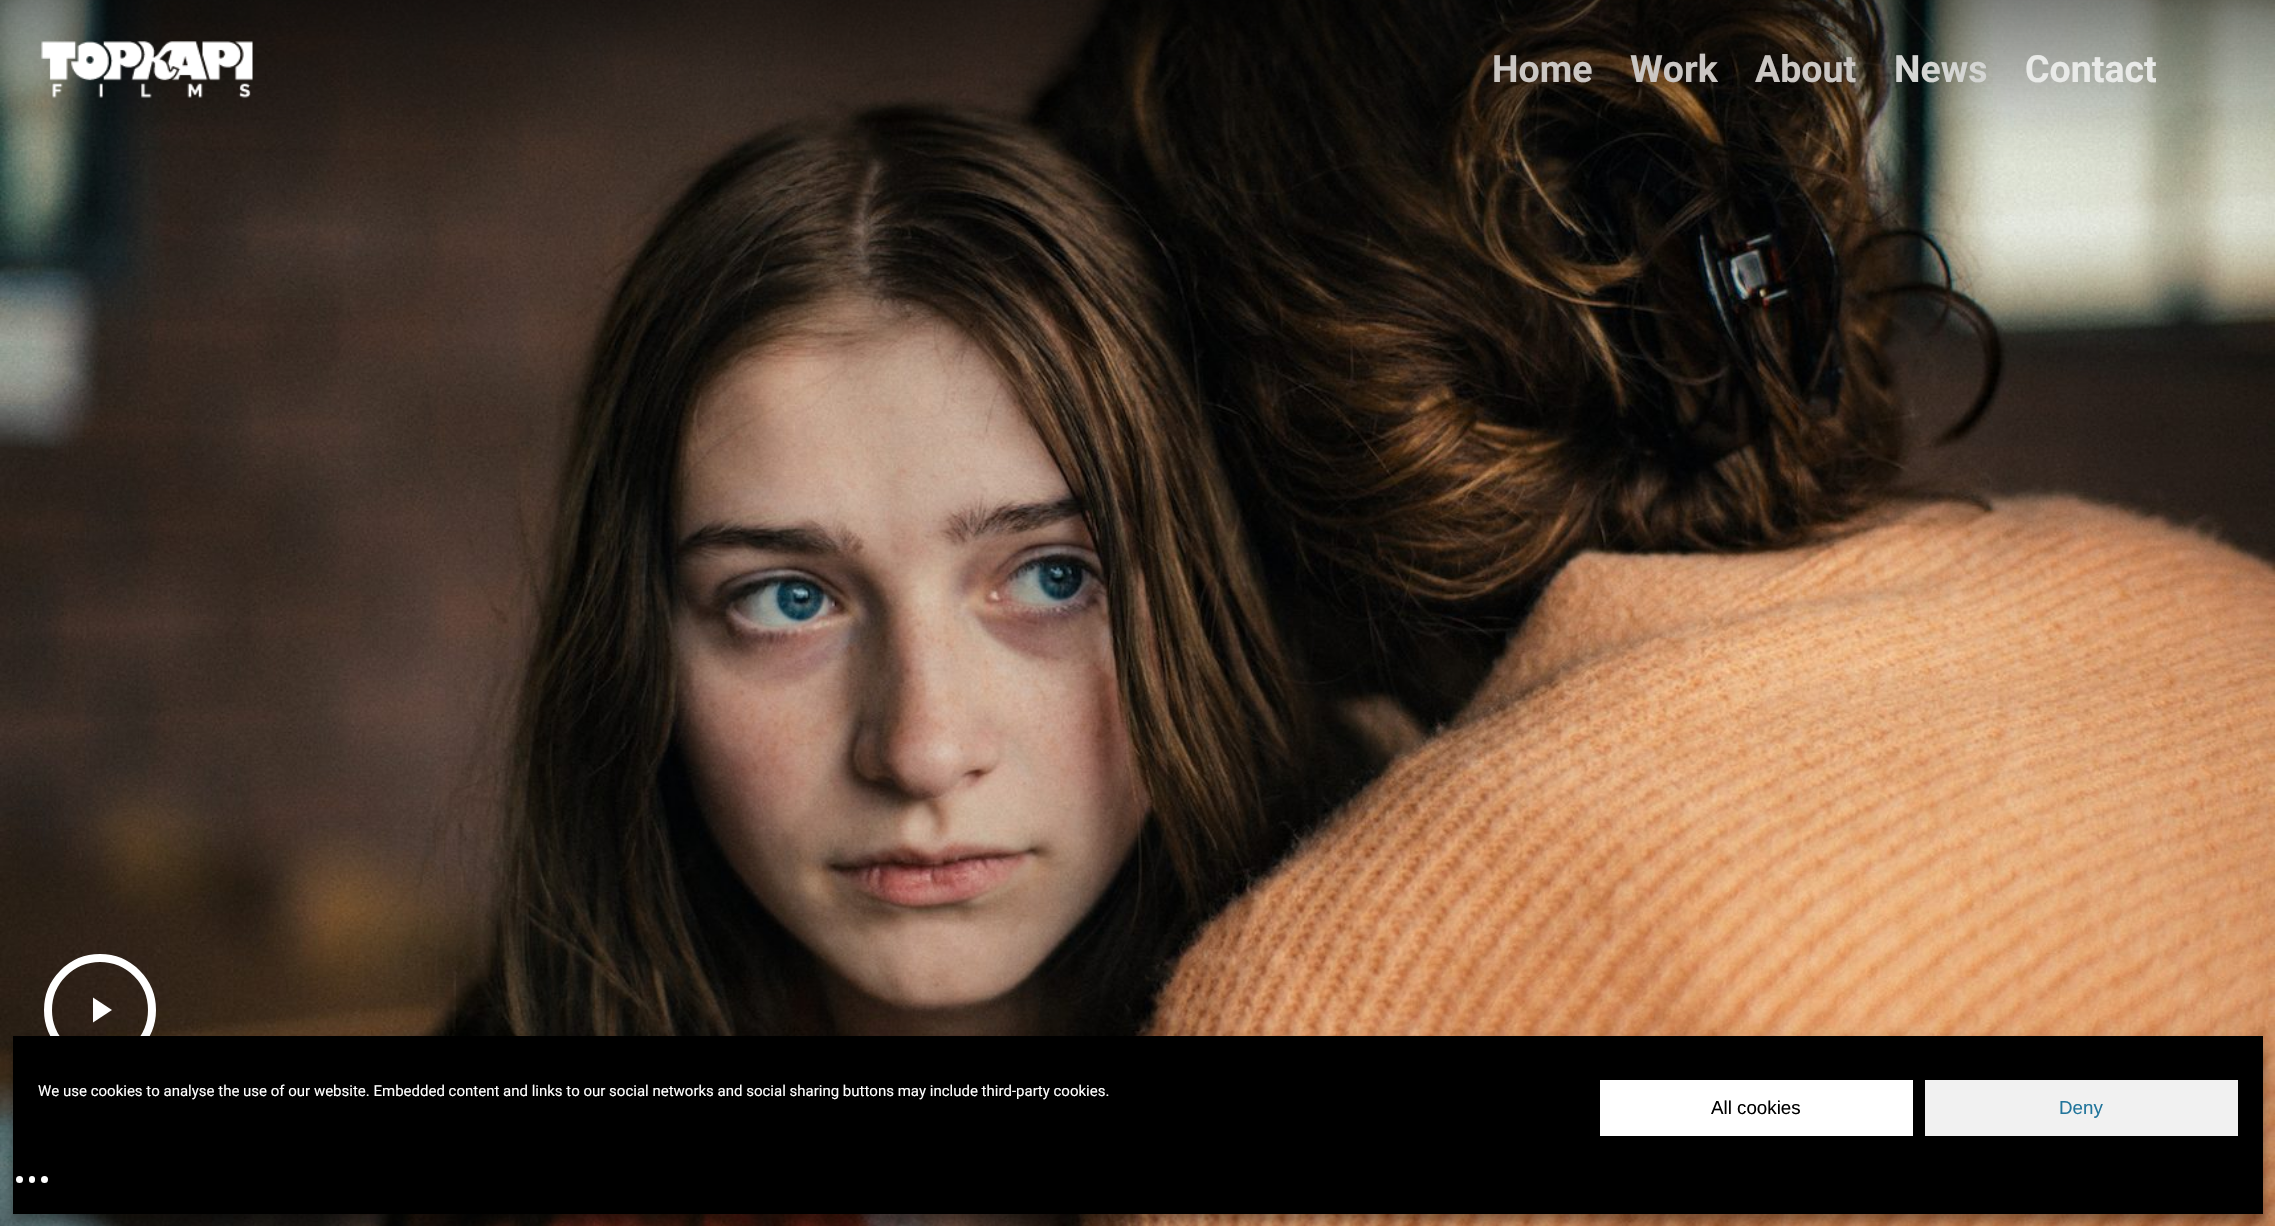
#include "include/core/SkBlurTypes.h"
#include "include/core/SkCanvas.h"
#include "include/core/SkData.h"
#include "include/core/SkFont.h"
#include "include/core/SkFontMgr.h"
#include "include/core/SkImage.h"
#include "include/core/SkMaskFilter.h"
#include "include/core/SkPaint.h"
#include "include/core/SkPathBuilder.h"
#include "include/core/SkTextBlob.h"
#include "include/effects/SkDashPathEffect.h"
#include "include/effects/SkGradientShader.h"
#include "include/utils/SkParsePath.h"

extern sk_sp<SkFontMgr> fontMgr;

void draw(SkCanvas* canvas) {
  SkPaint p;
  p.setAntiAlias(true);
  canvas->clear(SK_ColorWHITE);
  canvas->drawImageRect(SkImages::DeferredFromEncodedData(SkData::MakeFromFileName("images/1.png")), SkRect::MakeLTRB(0, 0, 2275, 1226), SkSamplingOptions());
  p.setColor(SK_ColorWHITE);
  canvas->drawPath(SkPathBuilder().moveTo(93, 997.5f).lineTo(93, 1022.5f).lineTo(112, 1010).close().detach(), p);
  p.setStyle(SkPaint::kStroke_Style);
  p.setStrokeWidth(8);
  canvas->drawCircle(100, 1010, 52, p);
  canvas->drawImageRect(SkImages::DeferredFromEncodedData(SkData::MakeFromFileName("images/2.png")), SkRect::MakeLTRB(41, 41, 253, 98), SkSamplingOptions());
  p.setStyle(SkPaint::kFill_Style);
  p.setColor(SkColorSetARGB(59, 0, 0, 0));
  p.setMaskFilter(SkMaskFilter::MakeBlur(kNormal_SkBlurStyle, 4));
  canvas->drawRect(SkRect::MakeLTRB(13, 1044, 2263, 1221), p);
  p.setMaskFilter(nullptr);
  p.setColor(SkColorSetARGB(48, 0, 0, 0));
  p.setMaskFilter(SkMaskFilter::MakeBlur(kNormal_SkBlurStyle, 12.5f));
  canvas->drawRect(SkRect::MakeLTRB(13, 1049, 2263, 1226), p);
  p.setMaskFilter(nullptr);
  p.setColor(SK_ColorBLACK);
  canvas->drawRect(SkRect::MakeLTRB(13, 1036, 2263, 1214), p);
  p.setColor(SK_ColorWHITE);
  canvas->drawRect(SkRect::MakeLTRB(1600, 1080, 1913, 1136), p);
  p.setColor(SkColorSetRGB(241, 241, 241));
  canvas->drawRect(SkRect::MakeLTRB(1925, 1080, 2238, 1136), p);
  p.setColor(SK_ColorWHITE);
  canvas->drawCircle(19.5f, 1179.5f, 3.5f, p);
  canvas->drawRoundRect(SkRect::MakeLTRB(29, 1176, 35, 1183), 3, 3, p);
  canvas->drawCircle(44.5f, 1179.5f, 3.5f, p);
  SkFont font1(fontMgr->matchFamilyStyle("Roboto", SkFontStyle::Bold()), 37.5f);
  font1.setSubpixel(true);
  p.setColor(SkColorSetRGB(202, 198, 195));
  canvas->drawString("Home", 1492, 82, font1, p);
  canvas->drawString("Work", 1630, 82, font1, p);
  canvas->drawString("About", 1755, 82, font1, p);
  p.setColor(SkColorSetRGB(212, 213, 211));
  canvas->drawString("News", 1894, 82, font1, p);
  p.setColor(SkColorSetRGB(233, 234, 232));
  canvas->drawString("Contact", 2025, 82, font1, p);
  SkFont font2(fontMgr->matchFamilyStyle("Roboto", SkFontStyle::Normal()), 15);
  font2.setSubpixel(true);
  p.setColor(SK_ColorWHITE);
  canvas->drawString("We use cookies to analyse the use of our website. Embedded content and links to our social networks and social sharing buttons may include third-party cookies.", 38, 1096, font2, p);
  SkFont font3(fontMgr->matchFamilyStyle("Liberation Sans", SkFontStyle::Normal()), 18.75f);
  font3.setSubpixel(true);
  p.setColor(SK_ColorBLACK);
  canvas->drawString("All cookies", 1711, 1114, font3, p);
  p.setColor(SkColorSetRGB(33, 117, 155));
  canvas->drawString("Deny", 2059, 1114, font3, p);
}
